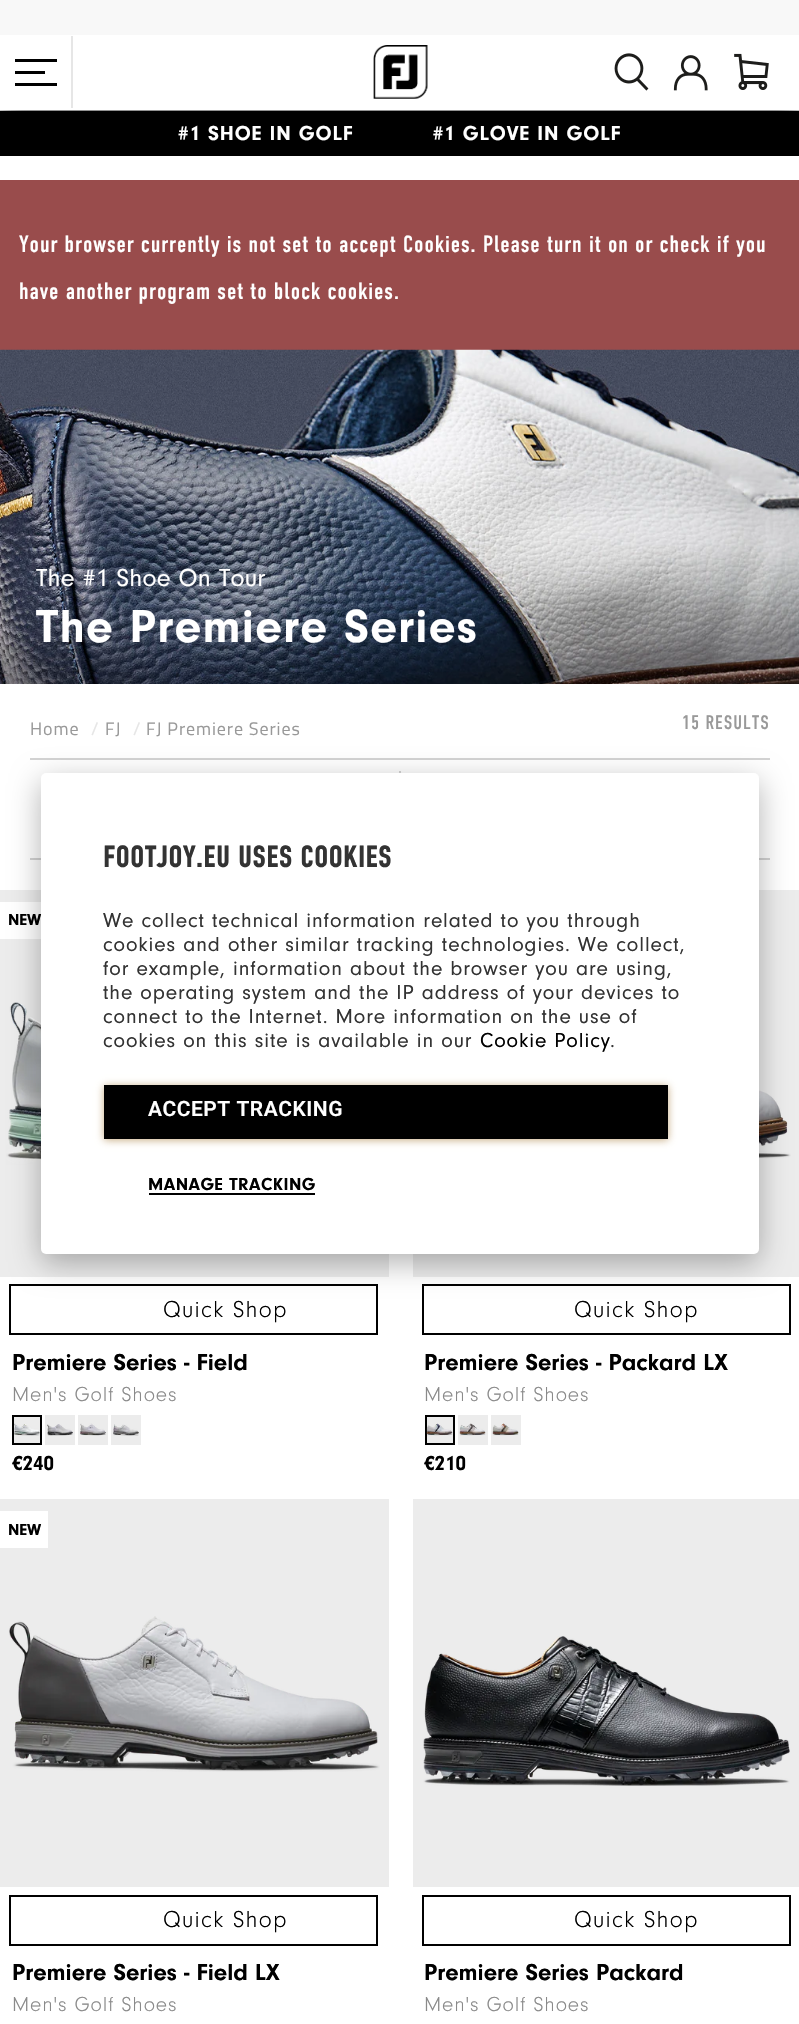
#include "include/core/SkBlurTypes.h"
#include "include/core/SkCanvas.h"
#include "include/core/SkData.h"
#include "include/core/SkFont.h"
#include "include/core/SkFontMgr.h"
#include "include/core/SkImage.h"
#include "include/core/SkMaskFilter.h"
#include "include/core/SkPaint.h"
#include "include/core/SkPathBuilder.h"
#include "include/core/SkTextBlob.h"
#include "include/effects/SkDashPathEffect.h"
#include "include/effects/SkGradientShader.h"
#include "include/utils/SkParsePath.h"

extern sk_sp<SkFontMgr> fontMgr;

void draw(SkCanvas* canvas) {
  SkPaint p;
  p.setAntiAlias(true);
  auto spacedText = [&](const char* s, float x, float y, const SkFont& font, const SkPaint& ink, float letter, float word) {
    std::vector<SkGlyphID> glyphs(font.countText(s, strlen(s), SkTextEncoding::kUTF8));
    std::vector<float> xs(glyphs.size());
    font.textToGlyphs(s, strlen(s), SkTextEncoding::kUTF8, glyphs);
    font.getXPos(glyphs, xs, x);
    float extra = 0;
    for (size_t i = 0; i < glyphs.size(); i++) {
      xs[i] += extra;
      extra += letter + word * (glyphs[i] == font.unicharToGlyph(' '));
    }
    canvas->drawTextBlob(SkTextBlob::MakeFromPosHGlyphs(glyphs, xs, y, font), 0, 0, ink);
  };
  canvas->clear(SK_ColorWHITE);
  p.setColor(SK_ColorBLACK);
  canvas->drawRect(SkRect::MakeLTRB(0, 111, 799, 156), p);
  p.setColor(SkColorSetARGB(128, 0, 0, 0));
  p.setMaskFilter(SkMaskFilter::MakeBlur(kNormal_SkBlurStyle, 15));
  canvas->drawRect(SkRect::MakeLTRB(0, 35, 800, 110), p);
  p.setMaskFilter(nullptr);
  p.setMaskFilter(SkMaskFilter::MakeBlur(kNormal_SkBlurStyle, 15));
  canvas->drawRect(SkRect::MakeLTRB(0, 35, 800, 110), p);
  p.setMaskFilter(nullptr);
  p.setColor(SK_ColorWHITE);
  canvas->drawRect(SkRect::MakeLTRB(0, 35, 799, 110), p);
  p.setColor(SkColorSetRGB(230, 230, 230));
  canvas->drawRect(SkRect::MakeLTRB(71, 36, 73, 108), p);
  p.setColor(SK_ColorBLACK);
  canvas->drawRect(SkRect::MakeLTRB(15, 59, 57, 62), p);
  canvas->drawRect(SkRect::MakeLTRB(15, 71, 45, 74), p);
  canvas->drawRect(SkRect::MakeLTRB(15, 83, 57, 86), p);
  canvas->drawImageRect(SkImages::DeferredFromEncodedData(SkData::MakeFromFileName("images/1.png")), SkRect::MakeLTRB(373, 45, 428, 99), SkSamplingOptions());
  canvas->drawImageRect(SkImages::DeferredFromEncodedData(SkData::MakeFromFileName("images/2.png")), SkRect::MakeLTRB(614, 53, 649, 91), SkSamplingOptions());
  canvas->drawImageRect(SkImages::DeferredFromEncodedData(SkData::MakeFromFileName("images/3.png")), SkRect::MakeLTRB(673, 55, 708, 91), SkSamplingOptions());
  canvas->drawImageRect(SkImages::DeferredFromEncodedData(SkData::MakeFromFileName("images/4.png")), SkRect::MakeLTRB(734, 53, 769, 90), SkSamplingOptions());
  p.setColor(SkColorSetRGB(248, 248, 248));
  canvas->drawRect(SkRect::MakeLTRB(0, 0, 799, 35), p);
  p.setColor(SkColorSetRGB(153, 76, 76));
  canvas->drawRect(SkRect::MakeLTRB(0, 180, 799, 350), p);
  canvas->drawImageRect(SkImages::DeferredFromEncodedData(SkData::MakeFromFileName("images/5.png")), SkRect::MakeLTRB(0, 349, 799, 684), SkSamplingOptions());
  p.setColor(SkColorSetRGB(211, 211, 211));
  canvas->drawRect(SkRect::MakeLTRB(30, 758, 770, 760), p);
  canvas->drawRect(SkRect::MakeLTRB(30, 858, 770, 860), p);
  canvas->drawRect(SkRect::MakeLTRB(399, 771, 401, 773), p);
  p.setColor(SkColorSetRGB(236, 236, 236));
  canvas->drawRect(SkRect::MakeLTRB(0, 890, 389, 1277), p);
  p.setColor(SK_ColorWHITE);
  canvas->drawRect(SkRect::MakeLTRB(0, 902, 41, 939), p);
  canvas->drawImageRect(SkImages::DeferredFromEncodedData(SkData::MakeFromFileName("images/6.png")), SkRect::MakeLTRB(6, 1002, 41, 1165), SkSamplingOptions());
  p.setStyle(SkPaint::kStroke_Style);
  p.setStrokeWidth(2);
  p.setColor(SK_ColorBLACK);
  canvas->drawRect(SkRect::MakeLTRB(10, 1285, 377, 1334), p);
  p.setStyle(SkPaint::kFill_Style);
  p.setColor(SkColorSetRGB(236, 236, 236));
  canvas->drawRect(SkRect::MakeLTRB(13, 1416, 41, 1444), p);
  p.setStyle(SkPaint::kStroke_Style);
  p.setColor(SK_ColorBLACK);
  canvas->drawRect(SkRect::MakeLTRB(13, 1416, 41, 1444), p);
  canvas->drawImageRect(SkImages::DeferredFromEncodedData(SkData::MakeFromFileName("images/7.png")), SkRect::MakeLTRB(14, 1423, 40, 1436), SkSamplingOptions());
  p.setStyle(SkPaint::kFill_Style);
  p.setColor(SkColorSetRGB(236, 236, 236));
  canvas->drawRect(SkRect::MakeLTRB(45, 1415, 75, 1445), p);
  canvas->drawImageRect(SkImages::DeferredFromEncodedData(SkData::MakeFromFileName("images/8.png")), SkRect::MakeLTRB(47, 1424, 73, 1436), SkSamplingOptions());
  canvas->drawRect(SkRect::MakeLTRB(78, 1415, 108, 1445), p);
  canvas->drawImageRect(SkImages::DeferredFromEncodedData(SkData::MakeFromFileName("images/9.png")), SkRect::MakeLTRB(80, 1423, 106, 1436), SkSamplingOptions());
  canvas->drawRect(SkRect::MakeLTRB(111, 1415, 141, 1445), p);
  canvas->drawImageRect(SkImages::DeferredFromEncodedData(SkData::MakeFromFileName("images/10.png")), SkRect::MakeLTRB(113, 1424, 139, 1436), SkSamplingOptions());
  canvas->drawRect(SkRect::MakeLTRB(413, 890, 799, 1277), p);
  canvas->drawImageRect(SkImages::DeferredFromEncodedData(SkData::MakeFromFileName("images/11.png")), SkRect::MakeLTRB(759, 1090, 791, 1159), SkSamplingOptions());
  p.setStyle(SkPaint::kStroke_Style);
  p.setColor(SK_ColorBLACK);
  canvas->drawRect(SkRect::MakeLTRB(423, 1285, 790, 1334), p);
  p.setStyle(SkPaint::kFill_Style);
  p.setColor(SkColorSetRGB(236, 236, 236));
  canvas->drawRect(SkRect::MakeLTRB(426, 1416, 454, 1444), p);
  p.setStyle(SkPaint::kStroke_Style);
  p.setColor(SK_ColorBLACK);
  canvas->drawRect(SkRect::MakeLTRB(426, 1416, 454, 1444), p);
  canvas->drawImageRect(SkImages::DeferredFromEncodedData(SkData::MakeFromFileName("images/12.png")), SkRect::MakeLTRB(426, 1423, 453, 1436), SkSamplingOptions());
  p.setStyle(SkPaint::kFill_Style);
  p.setColor(SkColorSetRGB(236, 236, 236));
  canvas->drawRect(SkRect::MakeLTRB(458, 1415, 488, 1445), p);
  canvas->drawImageRect(SkImages::DeferredFromEncodedData(SkData::MakeFromFileName("images/13.png")), SkRect::MakeLTRB(459, 1423, 486, 1436), SkSamplingOptions());
  canvas->drawRect(SkRect::MakeLTRB(491, 1415, 521, 1445), p);
  canvas->drawImageRect(SkImages::DeferredFromEncodedData(SkData::MakeFromFileName("images/14.png")), SkRect::MakeLTRB(492, 1423, 519, 1436), SkSamplingOptions());
  canvas->drawRect(SkRect::MakeLTRB(0, 1499, 389, 1887), p);
  p.setColor(SK_ColorWHITE);
  canvas->drawRect(SkRect::MakeLTRB(0, 1511, 48, 1548), p);
  canvas->drawImageRect(SkImages::DeferredFromEncodedData(SkData::MakeFromFileName("images/15.png")), SkRect::MakeLTRB(9, 1616, 380, 1772), SkSamplingOptions());
  p.setStyle(SkPaint::kStroke_Style);
  p.setColor(SK_ColorBLACK);
  canvas->drawRect(SkRect::MakeLTRB(10, 1896, 377, 1945), p);
  p.setStyle(SkPaint::kFill_Style);
  p.setColor(SkColorSetRGB(236, 236, 236));
  canvas->drawRect(SkRect::MakeLTRB(413, 1499, 799, 1887), p);
  canvas->drawImageRect(SkImages::DeferredFromEncodedData(SkData::MakeFromFileName("images/16.png")), SkRect::MakeLTRB(423, 1636, 790, 1786), SkSamplingOptions());
  p.setStyle(SkPaint::kStroke_Style);
  p.setColor(SK_ColorBLACK);
  canvas->drawRect(SkRect::MakeLTRB(423, 1896, 790, 1945), p);
  p.setStyle(SkPaint::kFill_Style);
  p.setColor(SkColorSetARGB(77, 0, 0, 0));
  p.setMaskFilter(SkMaskFilter::MakeBlur(kNormal_SkBlurStyle, 15));
  canvas->drawRoundRect(SkRect::MakeLTRB(41, 782, 759, 1263), 5, 5, p);
  p.setMaskFilter(nullptr);
  p.setColor(SK_ColorWHITE);
  canvas->drawRoundRect(SkRect::MakeLTRB(41, 773, 759, 1254), 5, 5, p);
  p.setColor(SkColorSetARGB(128, 139, 83, 0));
  p.setMaskFilter(SkMaskFilter::MakeBlur(kNormal_SkBlurStyle, 4));
  canvas->drawRect(SkRect::MakeLTRB(104, 1086, 668, 1140), p);
  p.setMaskFilter(nullptr);
  p.setColor(SK_ColorBLACK);
  canvas->drawRect(SkRect::MakeLTRB(104, 1085, 668, 1139), p);
  canvas->drawRect(SkRect::MakeLTRB(149, 1193, 315, 1195), p);
  SkFont font1(fontMgr->matchFamilyStyle("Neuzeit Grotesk", SkFontStyle::Bold()), 21);
  font1.setSubpixel(true);
  p.setColor(SK_ColorWHITE);
  spacedText("#1 SHOE IN GOLF           #1 GLOVE IN GOLF", 178, 140, font1, p, 0.9f, 0);
  SkFont font2(fontMgr->matchFamilyStyle("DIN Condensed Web", SkFontStyle::Normal()), 23.4f);
  font2.setSubpixel(true);
  spacedText("Your browser currently is not set to accept Cookies. Please turn it on or check if you", 19, 252, font2, p, 0.9f, 0);
  spacedText("have another program set to block cookies.", 19, 299, font2, p, 0.9f, 0);
  SkFont font3(fontMgr->matchFamilyStyle("Neuzeit Grotesk", SkFontStyle::Normal()), 25.5f);
  font3.setSubpixel(true);
  spacedText("The #1 Shoe On Tour", 36, 586, font3, p, 0.25f, 0);
  SkFont font4(fontMgr->matchFamilyStyle("Neuzeit Grotesk", SkFontStyle::Bold()), 48);
  font4.setSubpixel(true);
  spacedText("The Premiere Series", 36, 642, font4, p, 1.25f, 0);
  SkFont font5(fontMgr->matchFamilyStyle("Titillium Web", SkFontStyle::Normal()), 18);
  font5.setSubpixel(true);
  p.setColor(SkColorSetRGB(153, 153, 153));
  spacedText("Home", 30, 735, font5, p, 0.9f, 0);
  p.setColor(SkColorSetRGB(230, 230, 230));
  spacedText("/", 91, 735, font5, p, 0.9f, 0);
  p.setColor(SkColorSetRGB(153, 153, 153));
  spacedText("FJ", 105, 735, font5, p, 0.9f, 0);
  p.setColor(SkColorSetRGB(230, 230, 230));
  spacedText("/", 133, 735, font5, p, 0.9f, 0);
  p.setColor(SkColorSetRGB(153, 153, 153));
  spacedText("FJ Premiere Series", 146, 735, font5, p, 0.9f, 0);
  SkFont font6(fontMgr->matchFamilyStyle("DIN Condensed Web", SkFontStyle::Normal()), 19.5f);
  font6.setSubpixel(true);
  spacedText("15 RESULTS", 682, 729, font6, p, 0.9f, 0);
  SkFont font7(fontMgr->matchFamilyStyle("Neuzeit Grotesk", SkFontStyle::Bold()), 16.5f);
  font7.setSubpixel(true);
  p.setColor(SK_ColorBLACK);
  canvas->drawString("NEW", 8, 925, font7, p);
  SkFont font8(fontMgr->matchFamilyStyle("Neuzeit Grotesk", SkFontStyle(300, SkFontStyle::kNormal_Width, SkFontStyle::kUpright_Slant)), 24);
  font8.setSubpixel(true);
  spacedText("Quick Shop", 163, 1317, font8, p, 1.25f, 0);
  SkFont font9(fontMgr->matchFamilyStyle("Neuzeit Grotesk", SkFontStyle::Bold()), 24);
  font9.setSubpixel(true);
  canvas->drawString("Premiere Series - Field", 12, 1370, font9, p);
  SkFont font10(fontMgr->matchFamilyStyle("Neuzeit Grotesk", SkFontStyle(300, SkFontStyle::kNormal_Width, SkFontStyle::kUpright_Slant)), 21);
  font10.setSubpixel(true);
  p.setColor(SkColorSetRGB(138, 138, 138));
  spacedText("Men's Golf Shoes", 12, 1401, font10, p, 0.9f, 0);
  p.setColor(SK_ColorBLACK);
  canvas->drawString("€240", 12, 1470, font1, p);
  spacedText("Quick Shop", 574, 1317, font8, p, 1.25f, 0);
  canvas->drawString("Premiere Series - Packard LX", 424, 1370, font9, p);
  p.setColor(SkColorSetRGB(138, 138, 138));
  spacedText("Men's Golf Shoes", 424, 1401, font10, p, 0.9f, 0);
  p.setColor(SK_ColorBLACK);
  canvas->drawString("€210", 424, 1470, font1, p);
  canvas->drawString("NEW", 8, 1535, font7, p);
  spacedText("Quick Shop", 163, 1927, font8, p, 1.25f, 0);
  canvas->drawString("Premiere Series - Field LX", 12, 1980, font9, p);
  p.setColor(SkColorSetRGB(138, 138, 138));
  spacedText("Men's Golf Shoes", 12, 2011, font10, p, 0.9f, 0);
  p.setColor(SK_ColorBLACK);
  spacedText("Quick Shop", 574, 1927, font8, p, 1.25f, 0);
  canvas->drawString("Premiere Series Packard", 424, 1980, font9, p);
  p.setColor(SkColorSetRGB(138, 138, 138));
  spacedText("Men's Golf Shoes", 424, 2011, font10, p, 0.9f, 0);
  SkFont font11(fontMgr->matchFamilyStyle("DIN Condensed Web", SkFontStyle::Bold()), 29.5f);
  font11.setSubpixel(true);
  p.setColor(SkColorSetRGB(51, 51, 51));
  spacedText("FOOTJOY.EU USES COOKIES", 103, 867, font11, p, 0.9f, 0);
  SkFont font12(fontMgr->matchFamilyStyle("Neuzeit Grotesk", SkFontStyle::Normal()), 21);
  font12.setSubpixel(true);
  spacedText("We collect technical information related to you through", 103, 927, font12, p, 0.9f, 0);
  spacedText("cookies and other similar tracking technologies. We collect,", 103, 951, font12, p, 0.9f, 0);
  spacedText("for example, information about the browser you are using,", 103, 975, font12, p, 0.9f, 0);
  spacedText("the operating system and the IP address of your devices to", 103, 999, font12, p, 0.9f, 0);
  spacedText("connect to the Internet. More information on the use of", 103, 1023, font12, p, 0.9f, 0);
  spacedText("cookies on this site is available in our", 103, 1047, font12, p, 0.9f, 0);
  p.setColor(SK_ColorBLACK);
  spacedText("Cookie Policy", 480, 1047, font12, p, 0.9f, 0);
  p.setColor(SkColorSetRGB(51, 51, 51));
  spacedText(".", 610, 1047, font12, p, 0.9f, 0);
  SkFont font13(fontMgr->matchFamilyStyle("Roboto", SkFontStyle(600, SkFontStyle::kNormal_Width, SkFontStyle::kUpright_Slant)), 21);
  font13.setSubpixel(true);
  p.setColor(SK_ColorWHITE);
  spacedText("ACCEPT TRACKING", 148, 1116, font13, p, 0.5f, 0);
  SkFont font14(fontMgr->matchFamilyStyle("Neuzeit Grotesk", SkFontStyle::Bold()), 18);
  font14.setSubpixel(true);
  p.setColor(SK_ColorBLACK);
  spacedText("MANAGE TRACKING", 148, 1190, font14, p, 0.5f, 0);
}
